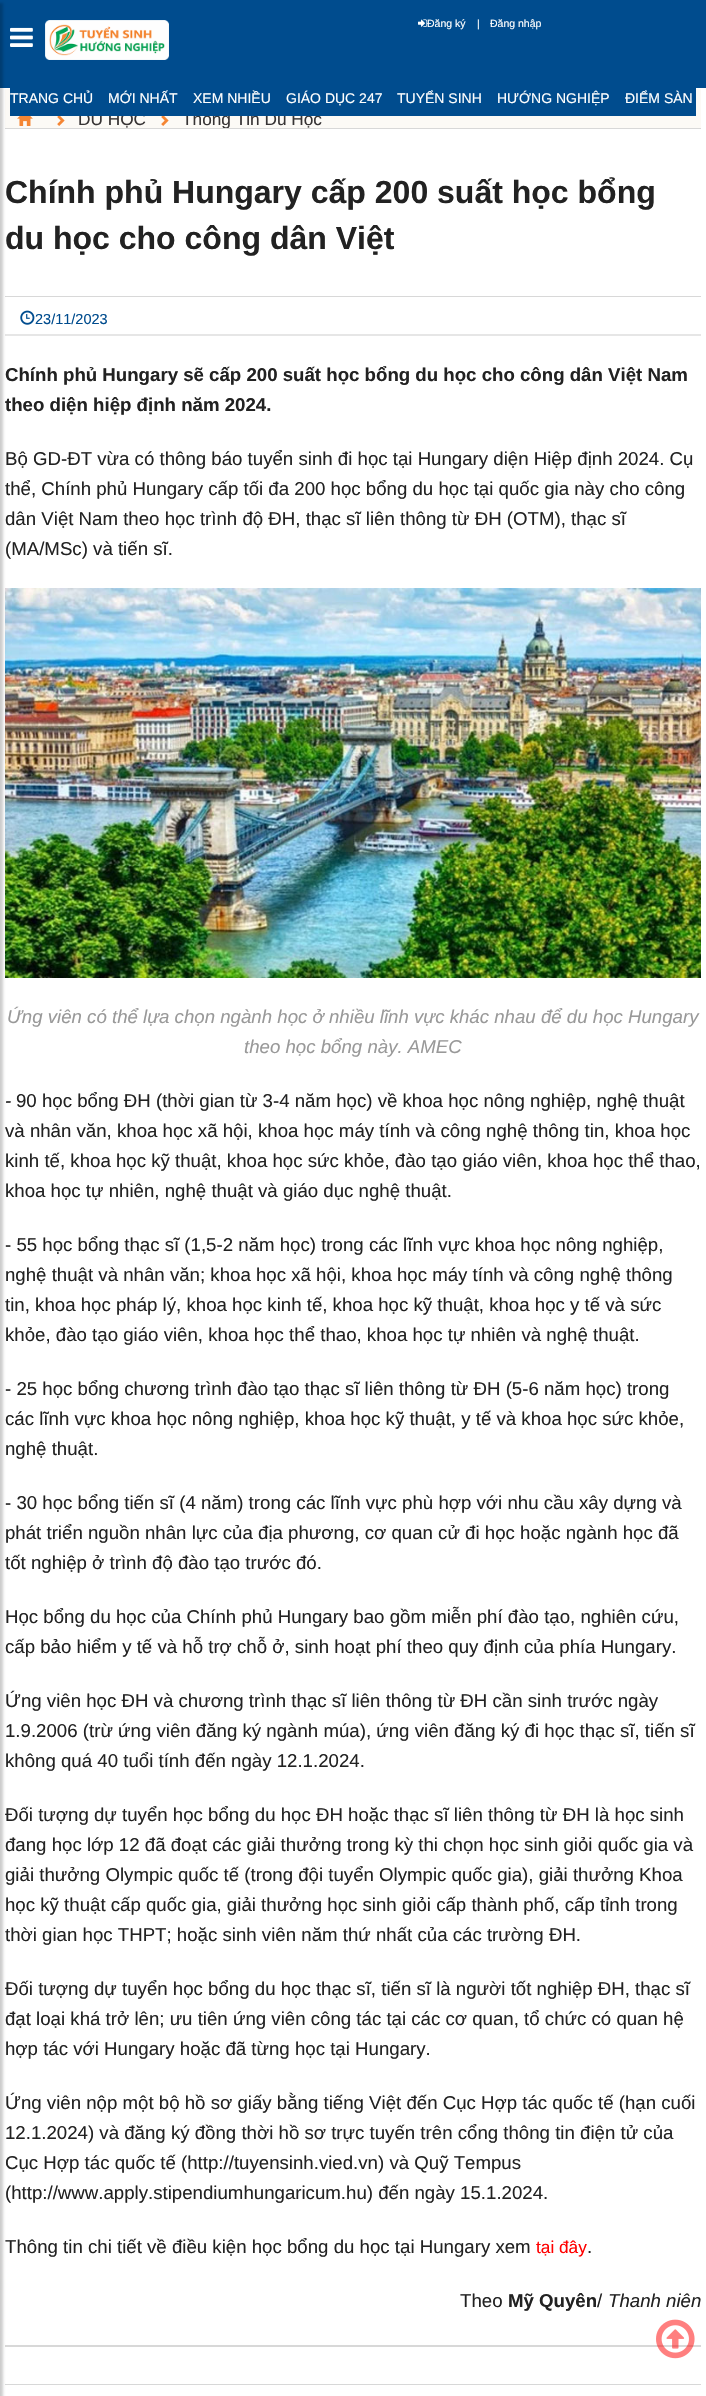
#include "include/core/SkBlurTypes.h"
#include "include/core/SkCanvas.h"
#include "include/core/SkData.h"
#include "include/core/SkFont.h"
#include "include/core/SkFontMgr.h"
#include "include/core/SkImage.h"
#include "include/core/SkMaskFilter.h"
#include "include/core/SkPaint.h"
#include "include/core/SkPathBuilder.h"
#include "include/core/SkTextBlob.h"
#include "include/effects/SkDashPathEffect.h"
#include "include/effects/SkGradientShader.h"
#include "include/utils/SkParsePath.h"

extern sk_sp<SkFontMgr> fontMgr;

void draw(SkCanvas* canvas) {
  SkPaint p;
  p.setAntiAlias(true);
  canvas->clear(SkColorSetRGB(0, 76, 142));
  p.setColor(SK_ColorWHITE);
  canvas->drawRect(SkRect::MakeLTRB(0, 88, 706, 2396), p);
  p.setColor(SkColorSetRGB(252, 250, 246));
  canvas->drawRect(SkRect::MakeLTRB(5, 89, 701, 128), p);
  p.setColor(SkColorSetRGB(216, 216, 216));
  canvas->drawRect(SkRect::MakeLTRB(5, 128, 701, 129), p);
  canvas->drawRect(SkRect::MakeLTRB(5, 296, 701, 297), p);
  p.setColor(SkColorSetRGB(230, 230, 230));
  canvas->drawRect(SkRect::MakeLTRB(5, 334, 701, 336), p);
  canvas->drawImageRect(SkImages::DeferredFromEncodedData(SkData::MakeFromFileName("images/7.png")), SkRect::MakeLTRB(5, 588, 701, 978), SkSamplingOptions());
  p.setColor(SkColorSetRGB(216, 216, 216));
  canvas->drawRect(SkRect::MakeLTRB(5, 2345, 701, 2347), p);
  canvas->drawRect(SkRect::MakeLTRB(5, 2384, 701, 2385), p);
  p.setColor(SkColorSetARGB(51, 0, 0, 0));
  p.setMaskFilter(SkMaskFilter::MakeBlur(kNormal_SkBlurStyle, 1.5f));
  canvas->drawRect(SkRect::MakeLTRB(-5, 3, 3, 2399), p);
  p.setMaskFilter(nullptr);
  canvas->drawImageRect(SkImages::DeferredFromEncodedData(SkData::MakeFromFileName("images/1.png")), SkRect::MakeLTRB(10, 27, 33, 47), SkSamplingOptions());
  canvas->drawImageRect(SkImages::DeferredFromEncodedData(SkData::MakeFromFileName("images/2.png")), SkRect::MakeLTRB(45, 20, 169, 60), SkSamplingOptions());
  canvas->drawImageRect(SkImages::DeferredFromEncodedData(SkData::MakeFromFileName("images/3.png")), SkRect::MakeLTRB(418, 19, 428, 27), SkSamplingOptions());
  canvas->drawImageRect(SkImages::DeferredFromEncodedData(SkData::MakeFromFileName("images/4.png")), SkRect::MakeLTRB(17, 116, 33, 126), SkSamplingOptions());
  canvas->drawImageRect(SkImages::DeferredFromEncodedData(SkData::MakeFromFileName("images/5.png")), SkRect::MakeLTRB(57, 116, 65, 126), SkSamplingOptions());
  canvas->drawImageRect(SkImages::DeferredFromEncodedData(SkData::MakeFromFileName("images/5.png")), SkRect::MakeLTRB(161, 116, 169, 126), SkSamplingOptions());
  canvas->drawImageRect(SkImages::DeferredFromEncodedData(SkData::MakeFromFileName("images/6.png")), SkRect::MakeLTRB(20, 310, 35, 325), SkSamplingOptions());
  canvas->drawImageRect(SkImages::DeferredFromEncodedData(SkData::MakeFromFileName("images/8.png")), SkRect::MakeLTRB(656, 2319, 695, 2359), SkSamplingOptions());
  SkFont font1(fontMgr->matchFamilyStyle("Liberation Sans", SkFontStyle::Normal()), 10.5f);
  font1.setSubpixel(true);
  p.setColor(SK_ColorWHITE);
  canvas->drawString("Đăng ký", 427, 27, font1, p);
  canvas->drawString("|", 477, 27, font1, p);
  canvas->drawString("Đăng nhập", 490, 27, font1, p);
  SkFont font2(fontMgr->matchFamilyStyle("Liberation Sans", SkFontStyle::Normal()), 17.25f);
  font2.setSubpixel(true);
  p.setColor(SkColorSetRGB(55, 52, 53));
  canvas->drawString("DU HỌC", 78, 125, font2, p);
  canvas->save();
  canvas->clipRect(SkRect::MakeLTRB(5, 104, 701, 128));
  canvas->drawString("Thông Tin Du Học", 182, 125, font2, p);
  canvas->restore();
  p.setColor(SkColorSetRGB(0, 76, 142));
  canvas->drawRect(SkRect::MakeLTRB(10, 88, 696, 116), p);
  SkFont font3(fontMgr->matchFamilyStyle("Liberation Sans", SkFontStyle::Normal()), 14);
  font3.setSubpixel(true);
  p.setColor(SK_ColorWHITE);
  canvas->drawString("ĐIỂM SÀN", 625, 103, font3, p);
  canvas->drawString("HƯỚNG NGHIỆP", 497, 103, font3, p);
  canvas->drawString("TUYỂN SINH", 397, 103, font3, p);
  canvas->drawString("GIÁO DỤC 247", 286, 103, font3, p);
  canvas->drawString("XEM NHIỀU", 193, 103, font3, p);
  canvas->drawString("MỚI NHẤT", 108, 103, font3, p);
  canvas->drawString("TRANG CHỦ", 10, 103, font3, p);
  SkFont font4(fontMgr->matchFamilyStyle("Liberation Sans", SkFontStyle::Bold()), 32);
  font4.setSubpixel(true);
  p.setColor(SkColorSetRGB(34, 34, 34));
  canvas->drawString("Chính phủ Hungary cấp 200 suất học bổng", 5, 203, font4, p);
  canvas->drawString("du học cho công dân Việt", 5, 249, font4, p);
  SkFont font5(fontMgr->matchFamilyStyle("Liberation Sans", SkFontStyle::Normal()), 14.5f);
  font5.setSubpixel(true);
  p.setColor(SkColorSetRGB(0, 76, 142));
  canvas->drawString("23/11/2023", 35, 324, font5, p);
  SkFont font6(fontMgr->matchFamilyStyle("Liberation Sans", SkFontStyle::Bold()), 18.65f);
  font6.setSubpixel(true);
  p.setColor(SkColorSetRGB(34, 34, 34));
  canvas->drawString("Chính phủ Hungary sẽ cấp 200 suất học bổng du học cho công dân Việt Nam", 5, 381, font6, p);
  canvas->drawString("theo diện hiệp định năm 2024.", 5, 411, font6, p);
  SkFont font7(fontMgr->matchFamilyStyle("Liberation Sans", SkFontStyle::Normal()), 18.65f);
  font7.setSubpixel(true);
  canvas->drawString("Bộ GD-ĐT vừa có thông báo tuyển sinh đi học tại Hungary diện Hiệp định 2024. Cụ", 5, 465, font7, p);
  canvas->drawString("thể, Chính phủ Hungary cấp tối đa 200 học bổng du học tại quốc gia này cho công", 5, 495, font7, p);
  canvas->drawString("dân Việt Nam theo học trình độ ĐH, thạc sĩ liên thông từ ĐH (OTM), thạc sĩ", 5, 525, font7, p);
  canvas->drawString("(MA/MSc) và tiến sĩ.", 5, 555, font7, p);
  SkFont font8(fontMgr->matchFamilyStyle("Liberation Sans", SkFontStyle::Italic()), 18.65f);
  font8.setSubpixel(true);
  p.setColor(SkColorSetRGB(153, 153, 153));
  canvas->drawString("Ứng viên có thể lựa chọn ngành học ở nhiều lĩnh vực khác nhau để du học Hungary", 7, 1023, font8, p);
  canvas->drawString("theo học bổng này. AMEC", 244, 1053, font8, p);
  p.setColor(SkColorSetRGB(34, 34, 34));
  canvas->drawString("-", 5, 1107, font8, p);
  canvas->drawString("90 học bổng ĐH (thời gian từ 3-4 năm học) về khoa học nông nghiệp, nghệ thuật", 16, 1107, font7, p);
  canvas->drawString("và nhân văn, khoa học xã hội, khoa học máy tính và công nghệ thông tin, khoa học", 5, 1137, font7, p);
  canvas->drawString("kinh tế, khoa học kỹ thuật, khoa học sức khỏe, đào tạo giáo viên, khoa học thể thao,", 5, 1167, font7, p);
  canvas->drawString("khoa học tự nhiên, nghệ thuật và giáo dục nghệ thuật.", 5, 1197, font7, p);
  canvas->drawString("- 55 học bổng thạc sĩ (1,5-2 năm học) trong các lĩnh vực khoa học nông nghiệp,", 5, 1251, font7, p);
  canvas->drawString("nghệ thuật và nhân văn; khoa học xã hội, khoa học máy tính và công nghệ thông", 5, 1281, font7, p);
  canvas->drawString("tin, khoa học pháp lý, khoa học kinh tế, khoa học kỹ thuật, khoa học y tế và sức", 5, 1311, font7, p);
  canvas->drawString("khỏe, đào tạo giáo viên, khoa học thể thao, khoa học tự nhiên và nghệ thuật.", 5, 1341, font7, p);
  canvas->drawString("- 25 học bổng chương trình đào tạo thạc sĩ liên thông từ ĐH (5-6 năm học) trong", 5, 1395, font7, p);
  canvas->drawString("các lĩnh vực khoa học nông nghiệp, khoa học kỹ thuật, y tế và khoa học sức khỏe,", 5, 1425, font7, p);
  canvas->drawString("nghệ thuật.", 5, 1455, font7, p);
  canvas->drawString("- 30 học bổng tiến sĩ (4 năm) trong các lĩnh vực phù hợp với nhu cầu xây dựng và", 5, 1509, font7, p);
  canvas->drawString("phát triển nguồn nhân lực của địa phương, cơ quan cử đi học hoặc ngành học đã", 5, 1539, font7, p);
  canvas->drawString("tốt nghiệp ở trình độ đào tạo trước đó.", 5, 1569, font7, p);
  canvas->drawString("Học bổng du học của Chính phủ Hungary bao gồm miễn phí đào tạo, nghiên cứu,", 5, 1623, font7, p);
  canvas->drawString("cấp bảo hiểm y tế và hỗ trợ chỗ ở, sinh hoạt phí theo quy định của phía Hungary.", 5, 1653, font7, p);
  canvas->drawString("Ứng viên học ĐH và chương trình thạc sĩ liên thông từ ĐH cần sinh trước ngày", 5, 1707, font7, p);
  canvas->drawString("1.9.2006 (trừ ứng viên đăng ký ngành múa), ứng viên đăng ký đi học thạc sĩ, tiến sĩ", 5, 1737, font7, p);
  canvas->drawString("không quá 40 tuổi tính đến ngày 12.1.2024.", 5, 1767, font7, p);
  canvas->drawString("Đối tượng dự tuyển học bổng du học ĐH hoặc thạc sĩ liên thông từ ĐH là học sinh", 5, 1821, font7, p);
  canvas->drawString("đang học lớp 12 đã đoạt các giải thưởng trong kỳ thi chọn học sinh giỏi quốc gia và", 5, 1851, font7, p);
  canvas->drawString("giải thưởng Olympic quốc tế (trong đội tuyển Olympic quốc gia), giải thưởng Khoa", 5, 1881, font7, p);
  canvas->drawString("học kỹ thuật cấp quốc gia, giải thưởng học sinh giỏi cấp thành phố, cấp tỉnh trong", 5, 1911, font7, p);
  canvas->drawString("thời gian học THPT; hoặc sinh viên năm thứ nhất của các trường ĐH.", 5, 1941, font7, p);
  canvas->drawString("Đối tượng dự tuyển học bổng du học thạc sĩ, tiến sĩ là người tốt nghiệp ĐH, thạc sĩ", 5, 1995, font7, p);
  canvas->drawString("đạt loại khá trở lên; ưu tiên ứng viên công tác tại các cơ quan, tổ chức có quan hệ", 5, 2025, font7, p);
  canvas->drawString("hợp tác với Hungary hoặc đã từng học tại Hungary.", 5, 2055, font7, p);
  canvas->drawString("Ứng viên nộp một bộ hồ sơ giấy bằng tiếng Việt đến Cục Hợp tác quốc tế (hạn cuối", 5, 2109, font7, p);
  canvas->drawString("12.1.2024) và đăng ký đồng thời hồ sơ trực tuyến trên cổng thông tin điện tử của", 5, 2139, font7, p);
  canvas->drawString("Cục Hợp tác quốc tế (http://tuyensinh.vied.vn) và Quỹ Tempus", 5, 2169, font7, p);
  canvas->drawString("(http://www.apply.stipendiumhungaricum.hu) đến ngày 15.1.2024.", 5, 2199, font7, p);
  canvas->drawString("Thông tin chi tiết về điều kiện học bổng du học tại Hungary xem", 5, 2253, font7, p);
  p.setColor(SkColorSetRGB(255, 0, 0));
  canvas->drawString("tại đây", 536, 2253, font2, p);
  p.setColor(SkColorSetRGB(34, 34, 34));
  canvas->drawString(".", 587, 2253, font7, p);
  canvas->drawString("Theo", 460, 2307, font7, p);
  canvas->drawString("Mỹ Quyên", 508, 2307, font6, p);
  canvas->drawString("/", 597, 2307, font7, p);
  canvas->drawString("Thanh niên", 608, 2307, font8, p);
}
